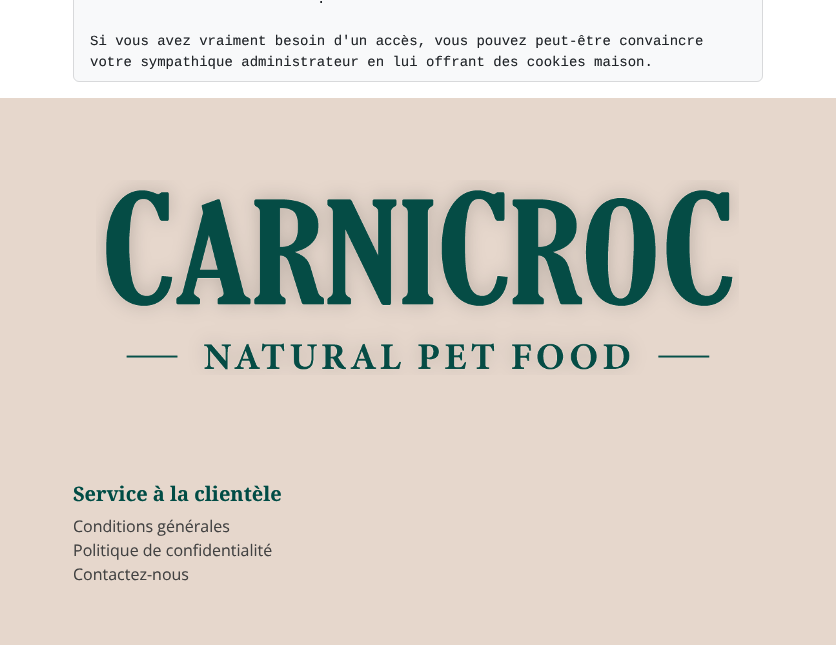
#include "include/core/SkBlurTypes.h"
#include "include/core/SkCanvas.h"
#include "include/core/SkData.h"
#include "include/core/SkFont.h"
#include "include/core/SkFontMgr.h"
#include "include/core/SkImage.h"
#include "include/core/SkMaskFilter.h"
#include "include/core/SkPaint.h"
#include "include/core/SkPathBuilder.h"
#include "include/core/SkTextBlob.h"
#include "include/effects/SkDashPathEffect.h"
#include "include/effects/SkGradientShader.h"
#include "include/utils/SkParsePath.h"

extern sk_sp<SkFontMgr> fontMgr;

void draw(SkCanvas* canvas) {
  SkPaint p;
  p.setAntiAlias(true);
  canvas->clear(SK_ColorWHITE);
  p.setColor(SkColorSetRGB(248, 249, 250));
  canvas->drawRoundRect(SkRect::MakeLTRB(73.5f, -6.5f, 762.5f, 81.5f), 5.5f, 5.5f, p);
  p.setStyle(SkPaint::kStroke_Style);
  p.setStrokeWidth(1);
  p.setColor(SkColorSetRGB(216, 217, 219));
  canvas->drawRoundRect(SkRect::MakeLTRB(73.5f, -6.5f, 762.5f, 81.5f), 5.5f, 5.5f, p);
  p.setStyle(SkPaint::kFill_Style);
  p.setColor(SkColorSetRGB(230, 215, 204));
  canvas->drawRect(SkRect::MakeLTRB(0, 98, 836, 645), p);
  canvas->drawImageRect(SkImages::DeferredFromEncodedData(SkData::MakeFromFileName("images/1.png")), SkRect::MakeLTRB(96, 180, 739, 375), SkSamplingOptions());
  SkFont font1(fontMgr->matchFamilyStyle("Liberation Mono", SkFontStyle::Normal()), 14);
  font1.setSubpixel(true);
  p.setColor(SkColorSetRGB(33, 37, 41));
  canvas->drawString(".", 317, 3, font1, p);
  canvas->drawString("Si vous avez vraiment besoin d'un accès, vous pouvez peut-être convaincre", 90, 45, font1, p);
  canvas->drawString("votre sympathique administrateur en lui offrant des cookies maison.", 90, 66, font1, p);
  SkFont font2(fontMgr->matchFamilyStyle("Noto Serif", SkFontStyle::Bold()), 20);
  font2.setSubpixel(true);
  p.setColor(SkColorSetRGB(0, 76, 69));
  canvas->drawString("Service à la clientèle", 73, 501, font2, p);
  SkFont font3(fontMgr->matchFamilyStyle("Open Sans", SkFontStyle::Normal()), 16);
  font3.setSubpixel(true);
  p.setColor(SkColorSetRGB(66, 66, 66));
  canvas->drawString("Conditions générales", 73, 532, font3, p);
  canvas->drawString("Politique de confidentialité", 73, 556, font3, p);
  canvas->drawString("Contactez-nous", 73, 580, font3, p);
}
